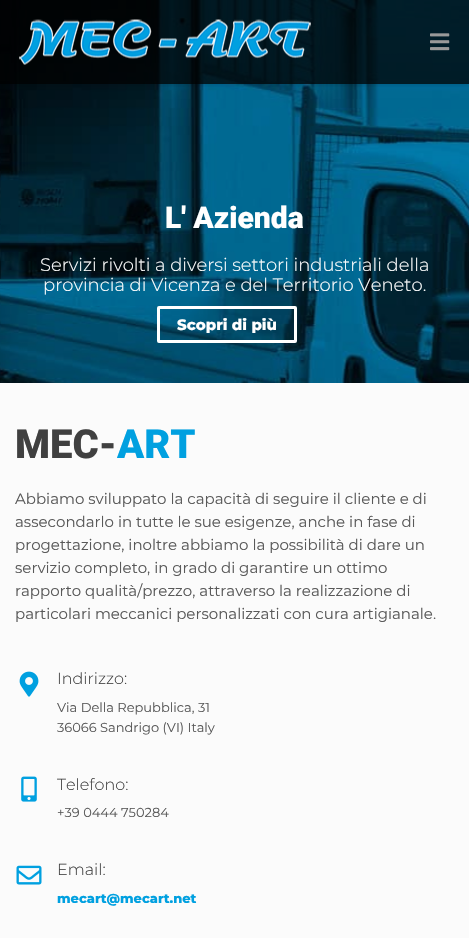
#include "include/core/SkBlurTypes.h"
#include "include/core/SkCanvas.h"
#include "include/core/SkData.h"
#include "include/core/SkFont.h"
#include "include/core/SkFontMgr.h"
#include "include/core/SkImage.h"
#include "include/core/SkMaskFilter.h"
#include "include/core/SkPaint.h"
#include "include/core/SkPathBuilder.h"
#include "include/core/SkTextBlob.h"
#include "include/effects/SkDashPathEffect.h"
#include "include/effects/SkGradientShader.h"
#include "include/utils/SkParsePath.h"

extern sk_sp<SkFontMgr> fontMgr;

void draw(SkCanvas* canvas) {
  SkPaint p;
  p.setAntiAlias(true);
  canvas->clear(SkColorSetRGB(251, 251, 251));
  canvas->drawImageRect(SkImages::DeferredFromEncodedData(SkData::MakeFromFileName("images/3.png")), SkRect::MakeLTRB(0, 0, 469, 383), SkSamplingOptions());
  canvas->save();
  canvas->clipRect(SkRect::MakeLTRB(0, 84, 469, 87));
  p.setColor(SkColorSetARGB(48, 0, 0, 0));
  p.setMaskFilter(SkMaskFilter::MakeBlur(kNormal_SkBlurStyle, 2.5f));
  canvas->drawRect(SkRect::MakeLTRB(0, 0, 469, 84), p);
  p.setMaskFilter(nullptr);
  canvas->restore();
  p.setColor(SkColorSetARGB(191, 0, 0, 0));
  canvas->drawRect(SkRect::MakeLTRB(0, 0, 469, 84), p);
  canvas->drawImageRect(SkImages::DeferredFromEncodedData(SkData::MakeFromFileName("images/1.png")), SkRect::MakeLTRB(19, 19, 311, 65), SkSamplingOptions());
  canvas->drawImageRect(SkImages::DeferredFromEncodedData(SkData::MakeFromFileName("images/2.png")), SkRect::MakeLTRB(430, 33, 450, 51), SkSamplingOptions());
  p.setStyle(SkPaint::kStroke_Style);
  p.setStrokeWidth(3);
  p.setColor(SK_ColorWHITE);
  canvas->drawRoundRect(SkRect::MakeLTRB(158.5f, 307.5f, 295.5f, 341.5f), 0.5f, 0.5f, p);
  canvas->drawImageRect(SkImages::DeferredFromEncodedData(SkData::MakeFromFileName("images/4.png")), SkRect::MakeLTRB(19, 671, 39, 697), SkSamplingOptions());
  canvas->drawImageRect(SkImages::DeferredFromEncodedData(SkData::MakeFromFileName("images/5.png")), SkRect::MakeLTRB(21, 776, 37, 802), SkSamplingOptions());
  canvas->drawImageRect(SkImages::DeferredFromEncodedData(SkData::MakeFromFileName("images/6.png")), SkRect::MakeLTRB(16, 865, 42, 885), SkSamplingOptions());
  SkFont font1(fontMgr->matchFamilyStyle("Roboto", SkFontStyle(900, SkFontStyle::kNormal_Width, SkFontStyle::kUpright_Slant)), 30);
  font1.setSubpixel(true);
  p.setStyle(SkPaint::kFill_Style);
  canvas->drawString("L' Azienda", 165, 228, font1, p);
  SkFont font2(fontMgr->matchFamilyStyle("Montserrat", SkFontStyle(300, SkFontStyle::kNormal_Width, SkFontStyle::kUpright_Slant)), 18);
  font2.setSubpixel(true);
  canvas->drawString("Servizi rivolti a diversi settori industriali della", 40, 271, font2, p);
  canvas->drawString("provincia di Vicenza e del Territorio Veneto.", 43, 291, font2, p);
  SkFont font3(fontMgr->matchFamilyStyle("Montserrat", SkFontStyle(800, SkFontStyle::kNormal_Width, SkFontStyle::kUpright_Slant)), 15);
  font3.setSubpixel(true);
  canvas->drawString("Scopri di più", 177, 330, font3, p);
  SkFont font4(fontMgr->matchFamilyStyle("Roboto", SkFontStyle(900, SkFontStyle::kNormal_Width, SkFontStyle::kUpright_Slant)), 40);
  font4.setSubpixel(true);
  p.setColor(SkColorSetRGB(64, 64, 64));
  canvas->drawString("MEC-", 15, 458, font4, p);
  p.setColor(SkColorSetRGB(0, 160, 224));
  canvas->drawString("ART", 117, 458, font4, p);
  SkFont font5(fontMgr->matchFamilyStyle("Montserrat", SkFontStyle::Normal()), 15);
  font5.setSubpixel(true);
  p.setColor(SkColorSetRGB(89, 89, 89));
  canvas->drawString("Abbiamo sviluppato la capacità di seguire il cliente e di", 15, 504, font5, p);
  canvas->drawString("assecondarlo in tutte le sue esigenze, anche in fase di", 15, 527, font5, p);
  canvas->drawString("progettazione, inoltre abbiamo la possibilità di dare un", 15, 550, font5, p);
  canvas->drawString("servizio completo, in grado di garantire un ottimo", 15, 573, font5, p);
  canvas->drawString("rapporto qualità/prezzo, attraverso la realizzazione di", 15, 596, font5, p);
  canvas->drawString("particolari meccanici personalizzati con cura artigianale.", 15, 619, font5, p);
  SkFont font6(fontMgr->matchFamilyStyle("Montserrat", SkFontStyle(300, SkFontStyle::kNormal_Width, SkFontStyle::kUpright_Slant)), 16);
  font6.setSubpixel(true);
  p.setColor(SkColorSetRGB(64, 64, 64));
  canvas->drawString("Indirizzo:", 57, 684, font6, p);
  SkFont font7(fontMgr->matchFamilyStyle("Montserrat", SkFontStyle::Normal()), 13);
  font7.setSubpixel(true);
  p.setColor(SkColorSetRGB(89, 89, 89));
  canvas->drawString("Via Della Repubblica, 31", 57, 712, font7, p);
  canvas->drawString("36066 Sandrigo (VI) Italy", 57, 732, font7, p);
  p.setColor(SkColorSetRGB(64, 64, 64));
  canvas->drawString("Telefono:", 57, 790, font6, p);
  p.setColor(SkColorSetRGB(89, 89, 89));
  canvas->drawString("+39 0444 750284", 57, 817, font7, p);
  p.setColor(SkColorSetRGB(64, 64, 64));
  canvas->drawString("Email:", 57, 875, font6, p);
  SkFont font8(fontMgr->matchFamilyStyle("Montserrat", SkFontStyle(800, SkFontStyle::kNormal_Width, SkFontStyle::kUpright_Slant)), 13);
  font8.setSubpixel(true);
  p.setColor(SkColorSetRGB(0, 160, 224));
  canvas->drawString("mecart@mecart.net", 57, 903, font8, p);
}
